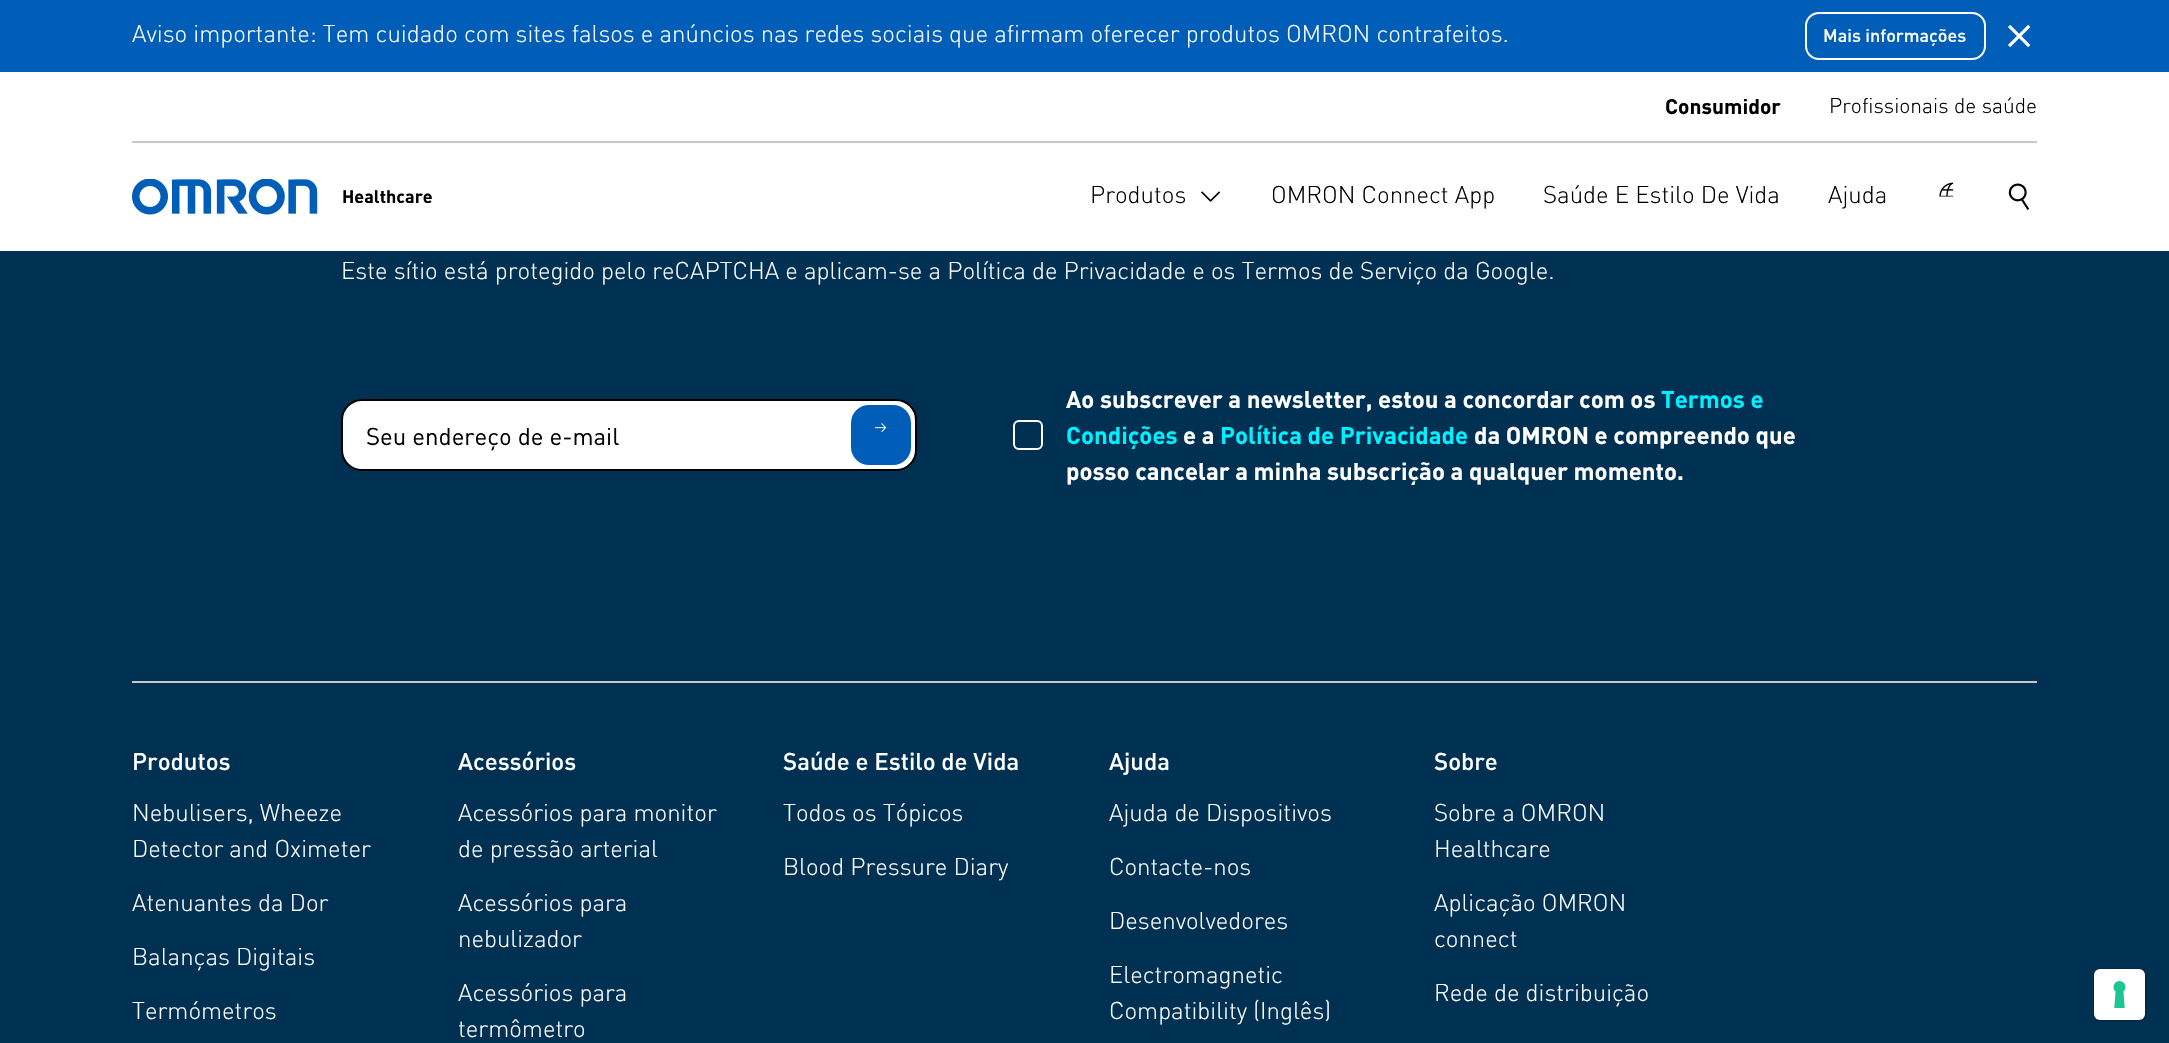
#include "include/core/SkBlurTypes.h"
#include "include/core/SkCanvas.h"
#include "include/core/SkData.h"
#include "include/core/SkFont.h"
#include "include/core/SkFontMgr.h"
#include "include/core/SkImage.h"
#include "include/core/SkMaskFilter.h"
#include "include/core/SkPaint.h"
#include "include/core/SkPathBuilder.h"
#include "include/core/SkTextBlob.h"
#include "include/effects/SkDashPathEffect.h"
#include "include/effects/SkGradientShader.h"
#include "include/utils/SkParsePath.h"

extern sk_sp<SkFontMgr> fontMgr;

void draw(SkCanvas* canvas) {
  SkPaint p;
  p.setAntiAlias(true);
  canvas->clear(SkColorSetRGB(0, 49, 83));
  p.setColor(SK_ColorWHITE);
  canvas->drawRect(SkRect::MakeLTRB(0, 72, 2169, 251), p);
  p.setColor(SkColorSetRGB(0, 94, 184));
  canvas->drawRect(SkRect::MakeLTRB(0, 0, 2169, 72), p);
  p.setStyle(SkPaint::kStroke_Style);
  p.setStrokeWidth(2);
  p.setColor(SK_ColorWHITE);
  canvas->drawRoundRect(SkRect::MakeLTRB(1806, 13, 1985, 59), 13, 13, p);
  canvas->drawImageRect(SkImages::DeferredFromEncodedData(SkData::MakeFromFileName("images/1.png")), SkRect::MakeLTRB(2008, 24, 2031, 48), SkSamplingOptions());
  p.setStyle(SkPaint::kFill_Style);
  p.setColor(SkColorSetRGB(201, 201, 201));
  canvas->drawRect(SkRect::MakeLTRB(132, 141, 2037, 143), p);
  canvas->drawImageRect(SkImages::DeferredFromEncodedData(SkData::MakeFromFileName("images/2.png")), SkRect::MakeLTRB(132, 179, 318, 215), SkSamplingOptions());
  canvas->drawImageRect(SkImages::DeferredFromEncodedData(SkData::MakeFromFileName("images/3.png")), SkRect::MakeLTRB(1201, 191, 1221, 202), SkSamplingOptions());
  canvas->drawImageRect(SkImages::DeferredFromEncodedData(SkData::MakeFromFileName("images/4.png")), SkRect::MakeLTRB(1939, 182, 1954, 197), SkSamplingOptions());
  canvas->drawImageRect(SkImages::DeferredFromEncodedData(SkData::MakeFromFileName("images/5.png")), SkRect::MakeLTRB(2008, 183, 2030, 210), SkSamplingOptions());
  p.setColor(SK_ColorWHITE);
  canvas->drawRoundRect(SkRect::MakeLTRB(342, 400, 916, 470), 20, 20, p);
  p.setStyle(SkPaint::kStroke_Style);
  p.setColor(SK_ColorBLACK);
  canvas->drawRoundRect(SkRect::MakeLTRB(342, 400, 916, 470), 20, 20, p);
  p.setStyle(SkPaint::kFill_Style);
  p.setColor(SkColorSetRGB(0, 94, 184));
  canvas->drawRoundRect(SkRect::MakeLTRB(851, 405, 911, 465), 18, 18, p);
  canvas->drawImageRect(SkImages::DeferredFromEncodedData(SkData::MakeFromFileName("images/6.png")), SkRect::MakeLTRB(874, 423, 887, 432), SkSamplingOptions());
  p.setStyle(SkPaint::kStroke_Style);
  p.setColor(SK_ColorWHITE);
  canvas->drawRoundRect(SkRect::MakeLTRB(1014, 421, 1042, 449), 5, 5, p);
  p.setStyle(SkPaint::kFill_Style);
  p.setColor(SkColorSetRGB(201, 201, 201));
  canvas->drawRect(SkRect::MakeLTRB(132, 681, 2037, 683), p);
  p.setStyle(SkPaint::kStroke_Style);
  p.setColor(SkColorSetRGB(0, 42, 71));
  canvas->drawRoundRect(SkRect::MakeLTRB(2094, 969, 2146, 1021), 7, 7, p);
  p.setStyle(SkPaint::kFill_Style);
  p.setColor(SK_ColorWHITE);
  canvas->drawRoundRect(SkRect::MakeLTRB(2094, 969, 2145, 1020), 6, 6, p);
  canvas->drawImageRect(SkImages::DeferredFromEncodedData(SkData::MakeFromFileName("images/7.png")), SkRect::MakeLTRB(2113, 981, 2126, 1008), SkSamplingOptions());
  SkFont font1(fontMgr->matchFamilyStyle("DIN", SkFontStyle(300, SkFontStyle::kNormal_Width, SkFontStyle::kUpright_Slant)), 24);
  font1.setSubpixel(true);
  canvas->drawString("Aviso importante: Tem cuidado com sites falsos e anúncios nas redes sociais que afirmam oferecer produtos OMRON contrafeitos.", 132, 42, font1, p);
  SkFont font2(fontMgr->matchFamilyStyle("DIN", SkFontStyle(500, SkFontStyle::kNormal_Width, SkFontStyle::kUpright_Slant)), 18);
  font2.setSubpixel(true);
  canvas->drawString("Mais informações", 1823, 42, font2, p);
  SkFont font3(fontMgr->matchFamilyStyle("DIN", SkFontStyle::Bold()), 21);
  font3.setSubpixel(true);
  p.setColor(SK_ColorBLACK);
  canvas->drawString("Consumidor", 1665, 114, font3, p);
  SkFont font4(fontMgr->matchFamilyStyle("DIN", SkFontStyle(300, SkFontStyle::kNormal_Width, SkFontStyle::kUpright_Slant)), 21);
  font4.setSubpixel(true);
  canvas->drawString("Profissionais de saúde", 1829, 113, font4, p);
  SkFont font5(fontMgr->matchFamilyStyle("DIN", SkFontStyle::Bold()), 18);
  font5.setSubpixel(true);
  canvas->drawString("Healthcare", 342, 203, font5, p);
  canvas->drawString("Produtos", 1090, 203, font1, p);
  canvas->drawString("OMRON Connect App", 1271, 203, font1, p);
  canvas->drawString("Saúde E Estilo De Vida", 1543, 203, font1, p);
  canvas->drawString("Ajuda", 1828, 203, font1, p);
  p.setColor(SK_ColorWHITE);
  canvas->drawString("Este sítio está protegido pelo reCAPTCHA e aplicam-se a Política de Privacidade e os Termos de Serviço da Google.", 341, 279, font1, p);
  SkFont font6(fontMgr->matchFamilyStyle("DIN", SkFontStyle::Normal()), 24);
  font6.setSubpixel(true);
  p.setColor(SK_ColorBLACK);
  canvas->drawString("Seu endereço de e-mail", 366, 445, font6, p);
  SkFont font7(fontMgr->matchFamilyStyle("DIN", SkFontStyle::Bold()), 24);
  font7.setSubpixel(true);
  p.setColor(SK_ColorWHITE);
  canvas->drawString("Ao subscrever a newsletter, estou a concordar com os", 1066, 408, font7, p);
  p.setColor(SkColorSetRGB(0, 240, 255));
  canvas->drawString("Termos e", 1661, 408, font7, p);
  canvas->drawString("Condições", 1066, 444, font7, p);
  p.setColor(SK_ColorWHITE);
  canvas->drawString("e a", 1183, 444, font7, p);
  p.setColor(SkColorSetRGB(0, 240, 255));
  canvas->drawString("Política de Privacidade", 1220, 444, font7, p);
  p.setColor(SK_ColorWHITE);
  canvas->drawString("da OMRON e compreendo que", 1474, 444, font7, p);
  canvas->drawString("posso cancelar a minha subscrição a qualquer momento.", 1066, 480, font7, p);
  SkFont font8(fontMgr->matchFamilyStyle("DIN", SkFontStyle(500, SkFontStyle::kNormal_Width, SkFontStyle::kUpright_Slant)), 24);
  font8.setSubpixel(true);
  canvas->drawString("Produtos", 132, 770, font8, p);
  canvas->drawString("Nebulisers, Wheeze", 132, 821, font1, p);
  canvas->drawString("Detector and Oximeter", 132, 857, font1, p);
  canvas->drawString("Atenuantes da Dor", 132, 911, font1, p);
  canvas->drawString("Balanças Digitais", 132, 965, font1, p);
  canvas->drawString("Termómetros", 132, 1019, font1, p);
  canvas->drawString("Acessórios", 458, 770, font8, p);
  canvas->drawString("Acessórios para monitor", 458, 821, font1, p);
  canvas->drawString("de pressão arterial", 458, 857, font1, p);
  canvas->drawString("Acessórios para", 458, 911, font1, p);
  canvas->drawString("nebulizador", 458, 947, font1, p);
  canvas->drawString("Acessórios para", 458, 1001, font1, p);
  canvas->drawString("termômetro", 458, 1037, font1, p);
  canvas->drawString("Saúde e Estilo de Vida", 783, 770, font8, p);
  canvas->drawString("Todos os Tópicos", 783, 821, font1, p);
  canvas->drawString("Blood Pressure Diary", 783, 875, font1, p);
  canvas->drawString("Ajuda", 1109, 770, font8, p);
  canvas->drawString("Ajuda de Dispositivos", 1109, 821, font1, p);
  canvas->drawString("Contacte-nos", 1109, 875, font1, p);
  canvas->drawString("Desenvolvedores", 1109, 929, font1, p);
  canvas->drawString("Electromagnetic", 1109, 983, font1, p);
  canvas->drawString("Compatibility (Inglês)", 1109, 1019, font1, p);
  canvas->drawString("Sobre", 1434, 770, font8, p);
  canvas->drawString("Sobre a OMRON", 1434, 821, font1, p);
  canvas->drawString("Healthcare", 1434, 857, font1, p);
  canvas->drawString("Aplicação OMRON", 1434, 911, font1, p);
  canvas->drawString("connect", 1434, 947, font1, p);
  canvas->drawString("Rede de distribuição", 1434, 1001, font1, p);
}
